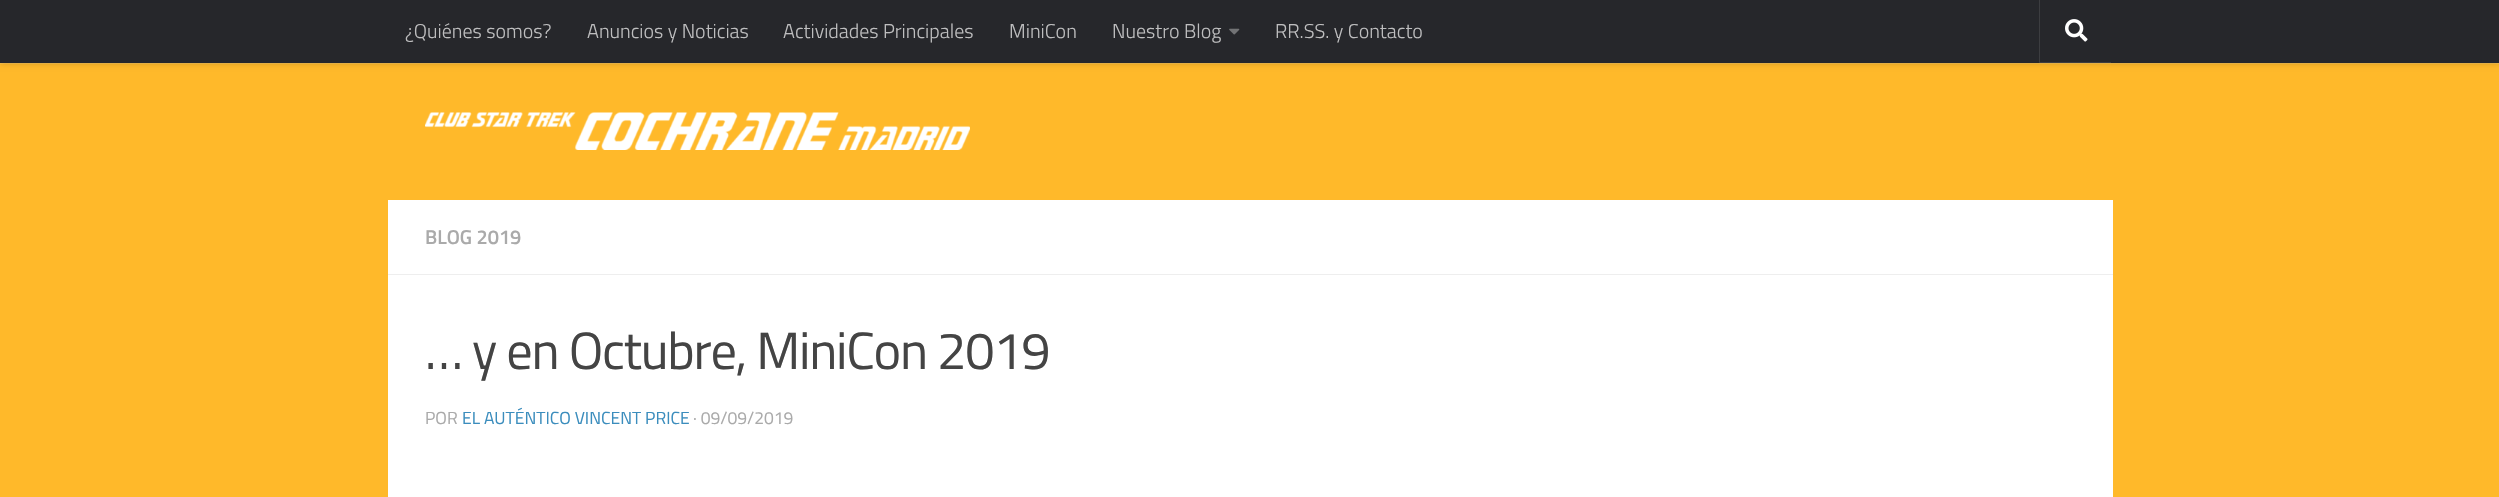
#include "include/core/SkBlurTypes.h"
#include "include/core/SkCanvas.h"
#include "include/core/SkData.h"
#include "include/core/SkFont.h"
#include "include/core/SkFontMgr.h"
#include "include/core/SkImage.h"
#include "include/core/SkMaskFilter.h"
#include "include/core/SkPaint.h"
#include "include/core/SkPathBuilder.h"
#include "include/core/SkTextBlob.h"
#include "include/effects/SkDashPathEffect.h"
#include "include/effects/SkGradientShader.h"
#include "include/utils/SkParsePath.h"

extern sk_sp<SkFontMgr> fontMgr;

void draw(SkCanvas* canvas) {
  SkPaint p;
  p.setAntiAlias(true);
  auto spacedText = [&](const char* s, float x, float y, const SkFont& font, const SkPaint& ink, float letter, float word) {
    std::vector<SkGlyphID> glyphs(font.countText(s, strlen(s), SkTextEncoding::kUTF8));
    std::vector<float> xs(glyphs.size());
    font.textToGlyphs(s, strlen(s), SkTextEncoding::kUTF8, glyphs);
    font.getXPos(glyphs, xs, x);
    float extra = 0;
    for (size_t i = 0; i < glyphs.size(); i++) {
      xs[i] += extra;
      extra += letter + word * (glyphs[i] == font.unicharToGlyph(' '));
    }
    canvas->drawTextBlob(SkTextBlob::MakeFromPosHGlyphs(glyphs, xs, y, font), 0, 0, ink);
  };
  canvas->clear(SkColorSetRGB(255, 185, 42));
  p.setColor(SkColorSetRGB(252, 193, 74));
  canvas->drawRect(SkRect::MakeLTRB(0, 63, 2499, 64), p);
  p.setColor(SkColorSetARGB(51, 0, 0, 0));
  p.setMaskFilter(SkMaskFilter::MakeBlur(kNormal_SkBlurStyle, 3));
  canvas->drawRect(SkRect::MakeLTRB(0, 0, 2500, 63), p);
  p.setMaskFilter(nullptr);
  p.setColor(SkColorSetRGB(38, 39, 43));
  canvas->drawRect(SkRect::MakeLTRB(0, 0, 2499, 63), p);
  canvas->drawImageRect(SkImages::DeferredFromEncodedData(SkData::MakeFromFileName("images/1.png")), SkRect::MakeLTRB(1229, 28, 1240, 35), SkSamplingOptions());
  p.setColor(SkColorSetRGB(60, 61, 64));
  canvas->drawPath(SkPathBuilder().moveTo(2039, 0).lineTo(2039, 63).lineTo(2111, 63).lineTo(2111, 62).lineTo(2040, 62).lineTo(2040, 0).close().detach(), p);
  canvas->drawImageRect(SkImages::DeferredFromEncodedData(SkData::MakeFromFileName("images/2.png")), SkRect::MakeLTRB(2065, 19, 2088, 42), SkSamplingOptions());
  canvas->drawImageRect(SkImages::DeferredFromEncodedData(SkData::MakeFromFileName("images/3.png")), SkRect::MakeLTRB(425, 112, 970, 150), SkSamplingOptions());
  p.setColor(SK_ColorWHITE);
  canvas->drawRect(SkRect::MakeLTRB(388, 200, 2113, 497), p);
  p.setColor(SkColorSetRGB(238, 238, 238));
  canvas->drawRect(SkRect::MakeLTRB(388, 274, 2113, 275), p);
  SkFont font1(fontMgr->matchFamilyStyle("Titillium", SkFontStyle(300, SkFontStyle::kNormal_Width, SkFontStyle::kUpright_Slant)), 20);
  font1.setSubpixel(true);
  p.setColor(SkColorSetRGB(190, 190, 191));
  canvas->drawString("¿Quiénes somos?", 405, 38, font1, p);
  canvas->drawString("Anuncios y Noticias", 587, 38, font1, p);
  canvas->drawString("Actividades Principales", 783, 38, font1, p);
  canvas->drawString("MiniCon", 1009, 38, font1, p);
  canvas->drawString("Nuestro Blog", 1112, 38, font1, p);
  canvas->drawString("RR.SS. y Contacto", 1275, 38, font1, p);
  SkFont font2(fontMgr->matchFamilyStyle("Titillium", SkFontStyle(600, SkFontStyle::kNormal_Width, SkFontStyle::kUpright_Slant)), 20);
  font2.setSubpixel(true);
  p.setColor(SkColorSetRGB(170, 170, 170));
  canvas->drawString("BLOG 2019", 425, 244, font2, p);
  SkFont font3(fontMgr->matchFamilyStyle("Titillium", SkFontStyle::Normal()), 52.4f);
  font3.setSubpixel(true);
  p.setColor(SkColorSetRGB(68, 68, 68));
  spacedText("… y en Octubre, MiniCon 2019", 425, 369, font3, p, -1.25f, 0);
  SkFont font4(fontMgr->matchFamilyStyle("Titillium", SkFontStyle::Normal()), 17.5f);
  font4.setSubpixel(true);
  p.setColor(SkColorSetRGB(170, 170, 170));
  canvas->drawString("POR", 425, 424, font4, p);
  p.setColor(SkColorSetRGB(59, 141, 189));
  canvas->drawString("EL AUTÉNTICO VINCENT PRICE", 462, 424, font4, p);
  p.setColor(SkColorSetRGB(170, 170, 170));
  canvas->drawString("· 09/09/2019", 693, 424, font4, p);
}
